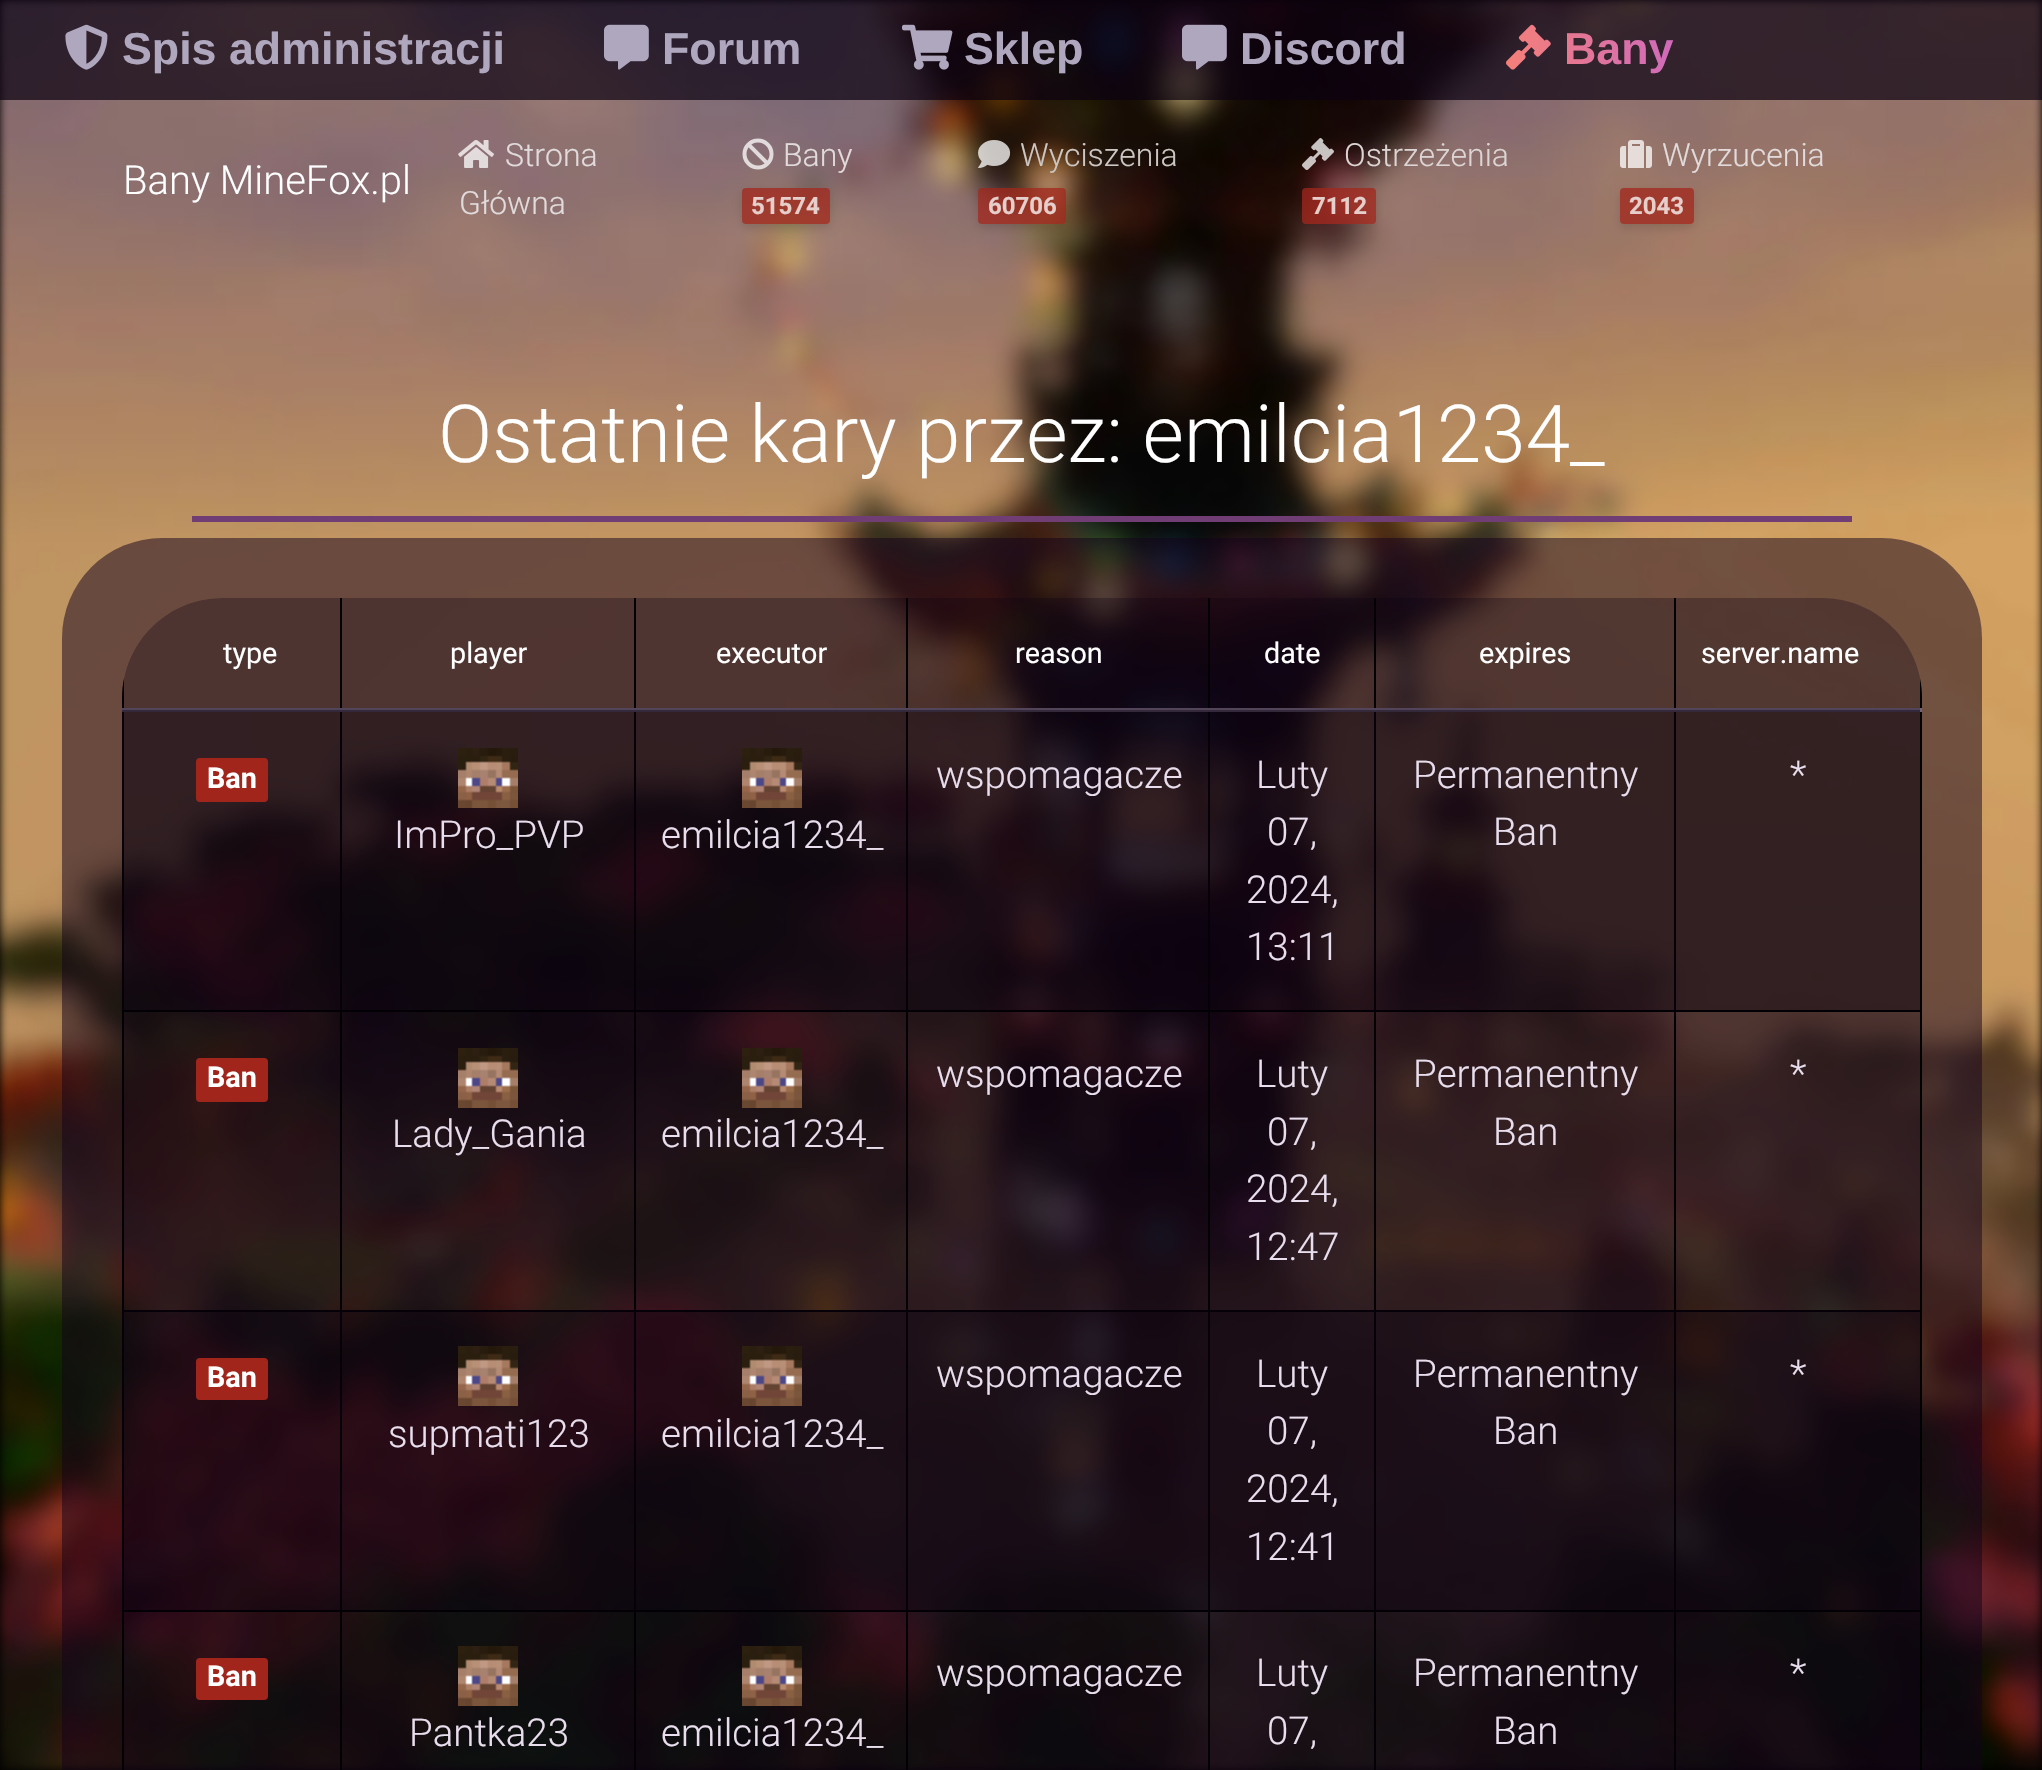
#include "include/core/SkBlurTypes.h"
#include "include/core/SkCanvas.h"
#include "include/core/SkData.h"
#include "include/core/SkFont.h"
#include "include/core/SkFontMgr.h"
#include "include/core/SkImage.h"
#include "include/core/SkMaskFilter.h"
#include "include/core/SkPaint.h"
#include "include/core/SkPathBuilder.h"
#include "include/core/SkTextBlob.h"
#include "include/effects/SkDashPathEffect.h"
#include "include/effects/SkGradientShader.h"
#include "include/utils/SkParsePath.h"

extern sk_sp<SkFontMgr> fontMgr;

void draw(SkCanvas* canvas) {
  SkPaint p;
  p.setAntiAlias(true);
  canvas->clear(SK_ColorBLACK);
  canvas->drawImageRect(SkImages::DeferredFromEncodedData(SkData::MakeFromFileName("images/1.png")), SkRect::MakeLTRB(0, 0, 2042, 1770), SkSamplingOptions());
  p.setColor(SkColorSetARGB(179, 10, 0, 15));
  canvas->drawRect(SkRect::MakeLTRB(0, 0, 2042, 100), p);
  canvas->drawImageRect(SkImages::DeferredFromEncodedData(SkData::MakeFromFileName("images/2.png")), SkRect::MakeLTRB(65, 24, 108, 70), SkSamplingOptions());
  canvas->drawImageRect(SkImages::DeferredFromEncodedData(SkData::MakeFromFileName("images/3.png")), SkRect::MakeLTRB(604, 24, 649, 70), SkSamplingOptions());
  canvas->drawImageRect(SkImages::DeferredFromEncodedData(SkData::MakeFromFileName("images/4.png")), SkRect::MakeLTRB(902, 24, 953, 70), SkSamplingOptions());
  canvas->drawImageRect(SkImages::DeferredFromEncodedData(SkData::MakeFromFileName("images/5.png")), SkRect::MakeLTRB(1182, 24, 1227, 70), SkSamplingOptions());
  canvas->drawImageRect(SkImages::DeferredFromEncodedData(SkData::MakeFromFileName("images/6.png")), SkRect::MakeLTRB(1506, 24, 1551, 70), SkSamplingOptions());
  canvas->drawImageRect(SkImages::DeferredFromEncodedData(SkData::MakeFromFileName("images/7.png")), SkRect::MakeLTRB(458, 140, 494, 168), SkSamplingOptions());
  canvas->drawImageRect(SkImages::DeferredFromEncodedData(SkData::MakeFromFileName("images/8.png")), SkRect::MakeLTRB(742, 138, 774, 170), SkSamplingOptions());
  canvas->save();
  canvas->clipPath(SkPathBuilder(SkPathFillType::kEvenOdd).moveTo(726, 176).lineTo(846, 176).lineTo(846, 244).lineTo(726, 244).close().moveTo(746, 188).lineTo(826, 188).cubicTo(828, 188, 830, 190, 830, 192).lineTo(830, 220).cubicTo(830, 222, 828, 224, 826, 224).lineTo(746, 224).cubicTo(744, 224, 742, 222, 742, 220).lineTo(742, 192).cubicTo(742, 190, 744, 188, 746, 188).close().detach(), true);
  p.setColor(SkColorSetARGB(31, 0, 0, 0));
  p.setMaskFilter(SkMaskFilter::MakeBlur(kNormal_SkBlurStyle, 5));
  canvas->drawRoundRect(SkRect::MakeLTRB(742, 192, 830, 228), 4, 4, p);
  p.setMaskFilter(nullptr);
  canvas->restore();
  p.setColor(SkColorSetARGB(191, 161, 37, 27));
  canvas->drawRoundRect(SkRect::MakeLTRB(742, 188, 830, 224), 4, 4, p);
  canvas->drawImageRect(SkImages::DeferredFromEncodedData(SkData::MakeFromFileName("images/9.png")), SkRect::MakeLTRB(978, 140, 1011, 168), SkSamplingOptions());
  canvas->save();
  canvas->clipPath(SkPathBuilder(SkPathFillType::kEvenOdd).moveTo(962, 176).lineTo(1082, 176).lineTo(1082, 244).lineTo(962, 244).close().moveTo(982, 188).lineTo(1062, 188).cubicTo(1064, 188, 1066, 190, 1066, 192).lineTo(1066, 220).cubicTo(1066, 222, 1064, 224, 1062, 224).lineTo(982, 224).cubicTo(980, 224, 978, 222, 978, 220).lineTo(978, 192).cubicTo(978, 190, 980, 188, 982, 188).close().detach(), true);
  p.setColor(SkColorSetARGB(31, 0, 0, 0));
  p.setMaskFilter(SkMaskFilter::MakeBlur(kNormal_SkBlurStyle, 5));
  canvas->drawRoundRect(SkRect::MakeLTRB(978, 192, 1066, 228), 4, 4, p);
  p.setMaskFilter(nullptr);
  canvas->restore();
  p.setColor(SkColorSetARGB(191, 161, 37, 27));
  canvas->drawRoundRect(SkRect::MakeLTRB(978, 188, 1066, 224), 4, 4, p);
  canvas->drawImageRect(SkImages::DeferredFromEncodedData(SkData::MakeFromFileName("images/10.png")), SkRect::MakeLTRB(1302, 138, 1334, 170), SkSamplingOptions());
  canvas->save();
  canvas->clipPath(SkPathBuilder(SkPathFillType::kEvenOdd).moveTo(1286, 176).lineTo(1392, 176).lineTo(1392, 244).lineTo(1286, 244).close().moveTo(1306, 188).lineTo(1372, 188).cubicTo(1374, 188, 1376, 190, 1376, 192).lineTo(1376, 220).cubicTo(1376, 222, 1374, 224, 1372, 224).lineTo(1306, 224).cubicTo(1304, 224, 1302, 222, 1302, 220).lineTo(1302, 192).cubicTo(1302, 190, 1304, 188, 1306, 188).close().detach(), true);
  p.setColor(SkColorSetARGB(31, 0, 0, 0));
  p.setMaskFilter(SkMaskFilter::MakeBlur(kNormal_SkBlurStyle, 5));
  canvas->drawRoundRect(SkRect::MakeLTRB(1302, 192, 1376, 228), 4, 4, p);
  p.setMaskFilter(nullptr);
  canvas->restore();
  p.setColor(SkColorSetARGB(191, 161, 37, 27));
  canvas->drawRoundRect(SkRect::MakeLTRB(1302, 188, 1376, 224), 4, 4, p);
  canvas->drawImageRect(SkImages::DeferredFromEncodedData(SkData::MakeFromFileName("images/11.png")), SkRect::MakeLTRB(1620, 140, 1652, 168), SkSamplingOptions());
  canvas->save();
  canvas->clipPath(SkPathBuilder(SkPathFillType::kEvenOdd).moveTo(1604, 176).lineTo(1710, 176).lineTo(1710, 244).lineTo(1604, 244).close().moveTo(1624, 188).lineTo(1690, 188).cubicTo(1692, 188, 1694, 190, 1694, 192).lineTo(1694, 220).cubicTo(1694, 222, 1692, 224, 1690, 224).lineTo(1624, 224).cubicTo(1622, 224, 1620, 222, 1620, 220).lineTo(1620, 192).cubicTo(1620, 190, 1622, 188, 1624, 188).close().detach(), true);
  p.setColor(SkColorSetARGB(31, 0, 0, 0));
  p.setMaskFilter(SkMaskFilter::MakeBlur(kNormal_SkBlurStyle, 5));
  canvas->drawRoundRect(SkRect::MakeLTRB(1620, 192, 1694, 228), 4, 4, p);
  p.setMaskFilter(nullptr);
  canvas->restore();
  p.setColor(SkColorSetARGB(191, 161, 37, 27));
  canvas->drawRoundRect(SkRect::MakeLTRB(1620, 188, 1694, 224), 4, 4, p);
  p.setColor(SkColorSetRGB(112, 62, 116));
  canvas->drawRect(SkRect::MakeLTRB(192, 516, 1852, 522), p);
  p.setColor(SkColorSetARGB(128, 17, 0, 26));
  canvas->drawRoundRect(SkRect::MakeLTRB(62, 538, 1982, 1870), 100, 100, p);
  p.setColor(SK_ColorBLACK);
  canvas->drawRect(SkRect::MakeLTRB(1674, 1010, 1922, 1012), p);
  canvas->drawRect(SkRect::MakeLTRB(1674, 1310, 1922, 1312), p);
  canvas->drawRect(SkRect::MakeLTRB(1674, 1610, 1922, 1612), p);
  canvas->drawRect(SkRect::MakeLTRB(1674, 1610, 1676, 1770), p);
  canvas->drawRect(SkRect::MakeLTRB(1374, 1610, 1676, 1612), p);
  canvas->drawRect(SkRect::MakeLTRB(1674, 1310, 1676, 1612), p);
  canvas->drawRect(SkRect::MakeLTRB(1374, 1310, 1676, 1312), p);
  canvas->drawRect(SkRect::MakeLTRB(1674, 1010, 1676, 1312), p);
  canvas->drawRect(SkRect::MakeLTRB(1374, 1010, 1676, 1012), p);
  canvas->drawRect(SkRect::MakeLTRB(1374, 1610, 1376, 1770), p);
  canvas->drawRect(SkRect::MakeLTRB(1208, 1610, 1376, 1612), p);
  canvas->drawRect(SkRect::MakeLTRB(1374, 1310, 1376, 1612), p);
  canvas->drawRect(SkRect::MakeLTRB(1208, 1310, 1376, 1312), p);
  canvas->drawRect(SkRect::MakeLTRB(1374, 1010, 1376, 1312), p);
  canvas->drawRect(SkRect::MakeLTRB(1208, 1010, 1376, 1012), p);
  canvas->drawRect(SkRect::MakeLTRB(1208, 1610, 1210, 1770), p);
  canvas->drawRect(SkRect::MakeLTRB(906, 1610, 1210, 1612), p);
  canvas->drawRect(SkRect::MakeLTRB(1208, 1310, 1210, 1612), p);
  canvas->drawRect(SkRect::MakeLTRB(906, 1310, 1210, 1312), p);
  canvas->drawRect(SkRect::MakeLTRB(1208, 1010, 1210, 1312), p);
  canvas->drawRect(SkRect::MakeLTRB(906, 1010, 1210, 1012), p);
  canvas->drawRect(SkRect::MakeLTRB(906, 1610, 908, 1770), p);
  canvas->drawRect(SkRect::MakeLTRB(634, 1610, 908, 1612), p);
  canvas->drawRect(SkRect::MakeLTRB(906, 1310, 908, 1612), p);
  canvas->drawRect(SkRect::MakeLTRB(634, 1310, 908, 1312), p);
  canvas->drawRect(SkRect::MakeLTRB(906, 1010, 908, 1312), p);
  canvas->drawRect(SkRect::MakeLTRB(634, 1010, 908, 1012), p);
  canvas->drawRect(SkRect::MakeLTRB(634, 1610, 636, 1770), p);
  canvas->drawRect(SkRect::MakeLTRB(340, 1610, 636, 1612), p);
  canvas->drawRect(SkRect::MakeLTRB(634, 1310, 636, 1612), p);
  canvas->drawRect(SkRect::MakeLTRB(340, 1310, 636, 1312), p);
  canvas->drawRect(SkRect::MakeLTRB(634, 1010, 636, 1312), p);
  canvas->drawRect(SkRect::MakeLTRB(340, 1010, 636, 1012), p);
  canvas->drawRect(SkRect::MakeLTRB(340, 1610, 342, 1770), p);
  canvas->drawRect(SkRect::MakeLTRB(122, 1610, 342, 1612), p);
  canvas->drawRect(SkRect::MakeLTRB(340, 1310, 342, 1612), p);
  canvas->drawRect(SkRect::MakeLTRB(122, 1310, 342, 1312), p);
  canvas->drawRect(SkRect::MakeLTRB(340, 1010, 342, 1312), p);
  canvas->drawRect(SkRect::MakeLTRB(122, 1010, 342, 1012), p);
  canvas->drawRect(SkRect::MakeLTRB(122, 1610, 124, 1770), p);
  canvas->drawRect(SkRect::MakeLTRB(122, 1310, 124, 1612), p);
  canvas->drawRect(SkRect::MakeLTRB(122, 710, 124, 1312), p);
  canvas->save();
  canvas->clipPath(SkPathBuilder().moveTo(222, 598).lineTo(1822, 598).cubicTo(1877, 598, 1922, 643, 1922, 698).lineTo(1922, 3608).cubicTo(1922, 3663, 1877, 3708, 1822, 3708).lineTo(222, 3708).cubicTo(167, 3708, 122, 3663, 122, 3608).lineTo(122, 698).cubicTo(122, 643, 167, 598, 222, 598).close().detach(), true);
  canvas->drawRect(SkRect::MakeLTRB(122, 678, 124, 712), p);
  canvas->restore();
  canvas->drawRect(SkRect::MakeLTRB(1920, 1610, 1922, 1770), p);
  canvas->drawRect(SkRect::MakeLTRB(1920, 1310, 1922, 1612), p);
  canvas->drawRect(SkRect::MakeLTRB(1920, 710, 1922, 1312), p);
  canvas->save();
  canvas->clipPath(SkPathBuilder().moveTo(222, 598).lineTo(1822, 598).cubicTo(1877, 598, 1922, 643, 1922, 698).lineTo(1922, 3608).cubicTo(1922, 3663, 1877, 3708, 1822, 3708).lineTo(222, 3708).cubicTo(167, 3708, 122, 3663, 122, 3608).lineTo(122, 698).cubicTo(122, 643, 167, 598, 222, 598).close().detach(), true);
  canvas->drawRect(SkRect::MakeLTRB(1920, 678, 1922, 712), p);
  canvas->restore();
  canvas->drawRect(SkRect::MakeLTRB(906, 598, 908, 1012), p);
  canvas->drawRect(SkRect::MakeLTRB(1208, 598, 1210, 1012), p);
  canvas->drawRect(SkRect::MakeLTRB(1374, 598, 1376, 1012), p);
  canvas->drawRect(SkRect::MakeLTRB(1674, 598, 1676, 1012), p);
  canvas->drawRect(SkRect::MakeLTRB(340, 598, 342, 1012), p);
  canvas->drawRect(SkRect::MakeLTRB(634, 598, 636, 1012), p);
  p.setColor(SkColorSetRGB(113, 99, 121));
  canvas->drawRect(SkRect::MakeLTRB(122, 708, 1922, 712), p);
  canvas->save();
  canvas->clipPath(SkPathBuilder().moveTo(222, 598).lineTo(1822, 598).cubicTo(1877, 598, 1922, 643, 1922, 698).lineTo(1922, 3608).cubicTo(1922, 3663, 1877, 3708, 1822, 3708).lineTo(222, 3708).cubicTo(167, 3708, 122, 3663, 122, 3608).lineTo(122, 698).cubicTo(122, 643, 167, 598, 222, 598).close().detach(), true);
  p.setColor(SkColorSetARGB(77, 10, 0, 15));
  canvas->drawPath(SkPathBuilder().moveTo(222, 598).lineTo(1920, 598).lineTo(1920, 710).lineTo(122, 710).lineTo(122, 698).cubicTo(122, 643, 167, 598, 222, 598).close().detach(), p);
  canvas->restore();
  p.setColor(SkColorSetARGB(153, 10, 1, 15));
  canvas->drawRect(SkRect::MakeLTRB(122, 710, 1920, 1010), p);
  p.setColor(SkColorSetRGB(161, 37, 27));
  canvas->drawRoundRect(SkRect::MakeLTRB(196, 758, 268, 802), 4, 4, p);
  canvas->drawImageRect(SkImages::DeferredFromEncodedData(SkData::MakeFromFileName("images/12.png")), SkRect::MakeLTRB(458, 748, 518, 808), SkSamplingOptions());
  canvas->drawImageRect(SkImages::DeferredFromEncodedData(SkData::MakeFromFileName("images/12.png")), SkRect::MakeLTRB(742, 748, 802, 808), SkSamplingOptions());
  p.setColor(SkColorSetARGB(77, 10, 0, 15));
  canvas->drawRect(SkRect::MakeLTRB(122, 1010, 1920, 1310), p);
  p.setColor(SkColorSetRGB(161, 37, 27));
  canvas->drawRoundRect(SkRect::MakeLTRB(196, 1058, 268, 1102), 4, 4, p);
  canvas->drawImageRect(SkImages::DeferredFromEncodedData(SkData::MakeFromFileName("images/12.png")), SkRect::MakeLTRB(458, 1048, 518, 1108), SkSamplingOptions());
  canvas->drawImageRect(SkImages::DeferredFromEncodedData(SkData::MakeFromFileName("images/12.png")), SkRect::MakeLTRB(742, 1048, 802, 1108), SkSamplingOptions());
  p.setColor(SkColorSetARGB(153, 10, 1, 15));
  canvas->drawRect(SkRect::MakeLTRB(122, 1310, 1920, 1610), p);
  p.setColor(SkColorSetRGB(161, 37, 27));
  canvas->drawRoundRect(SkRect::MakeLTRB(196, 1358, 268, 1400), 4, 4, p);
  canvas->drawImageRect(SkImages::DeferredFromEncodedData(SkData::MakeFromFileName("images/12.png")), SkRect::MakeLTRB(458, 1346, 518, 1406), SkSamplingOptions());
  canvas->drawImageRect(SkImages::DeferredFromEncodedData(SkData::MakeFromFileName("images/12.png")), SkRect::MakeLTRB(742, 1346, 802, 1406), SkSamplingOptions());
  p.setColor(SkColorSetARGB(77, 10, 0, 15));
  canvas->drawRect(SkRect::MakeLTRB(122, 1610, 1920, 1770), p);
  p.setColor(SkColorSetRGB(161, 37, 27));
  canvas->drawRoundRect(SkRect::MakeLTRB(196, 1658, 268, 1700), 4, 4, p);
  canvas->drawImageRect(SkImages::DeferredFromEncodedData(SkData::MakeFromFileName("images/12.png")), SkRect::MakeLTRB(458, 1646, 518, 1706), SkSamplingOptions());
  canvas->drawImageRect(SkImages::DeferredFromEncodedData(SkData::MakeFromFileName("images/12.png")), SkRect::MakeLTRB(742, 1646, 802, 1706), SkSamplingOptions());
  SkFont font1(fontMgr->matchFamilyStyle("Liberation Sans", SkFontStyle::Bold()), 44.75f);
  font1.setSubpixel(true);
  p.setColor(SkColorSetRGB(175, 167, 190));
  canvas->drawString("Spis administracji", 122, 64, font1, p);
  canvas->drawString("Forum", 662, 64, font1, p);
  canvas->drawString("Sklep", 964, 64, font1, p);
  canvas->drawString("Discord", 1240, 64, font1, p);
  {
    const SkColor colors[] = {SkColorSetRGB(254, 133, 103), SkColorSetRGB(198, 101, 205)};
    const float stops[] = {0, 1};
    const SkPoint ends[] = {{1462, 50}, {1718, 50}};
    p.setShader(SkGradientShader::MakeLinear(ends, colors, stops, 2, SkTileMode::kClamp));
    p.setAlpha(255);
  }
  canvas->drawString("Bany", 1564, 64, font1, p);
  SkFont font2(fontMgr->matchFamilyStyle("Roboto", SkFontStyle(300, SkFontStyle::kNormal_Width, SkFontStyle::kUpright_Slant)), 40);
  font2.setSubpixel(true);
  p.setShader(nullptr);
  p.setColor(SK_ColorWHITE);
  canvas->drawString("Bany MineFox.pl", 123, 194, font2, p);
  SkFont font3(fontMgr->matchFamilyStyle("Roboto", SkFontStyle(300, SkFontStyle::kNormal_Width, SkFontStyle::kUpright_Slant)), 32);
  font3.setSubpixel(true);
  p.setColor(SkColorSetRGB(226, 219, 220));
  canvas->drawString("Strona", 505, 166, font3, p);
  canvas->drawString("Główna", 459, 214, font3, p);
  canvas->drawString("Bany", 783, 166, font3, p);
  SkFont font4(fontMgr->matchFamilyStyle("Roboto", SkFontStyle::Bold()), 24);
  font4.setSubpixel(true);
  p.setColor(SkColorSetRGB(230, 206, 203));
  canvas->drawString("51574", 751, 214, font4, p);
  p.setColor(SkColorSetRGB(204, 199, 196));
  canvas->drawString("Wyciszenia", 1020, 166, font3, p);
  p.setColor(SkColorSetRGB(230, 206, 203));
  canvas->drawString("60706", 988, 214, font4, p);
  p.setColor(SkColorSetRGB(220, 213, 212));
  canvas->drawString("Ostrzeżenia", 1344, 166, font3, p);
  p.setColor(SkColorSetRGB(230, 206, 203));
  canvas->drawString("7112", 1312, 214, font4, p);
  p.setColor(SkColorSetRGB(226, 219, 220));
  canvas->drawString("Wyrzucenia", 1662, 166, font3, p);
  p.setColor(SkColorSetRGB(230, 206, 203));
  canvas->drawString("2043", 1629, 214, font4, p);
  SkFont font5(fontMgr->matchFamilyStyle("Roboto", SkFontStyle(300, SkFontStyle::kNormal_Width, SkFontStyle::kUpright_Slant)), 80);
  font5.setSubpixel(true);
  p.setColor(SK_ColorWHITE);
  canvas->drawString("Ostatnie kary przez: emilcia1234_", 438, 462, font5, p);
  SkFont font6(fontMgr->matchFamilyStyle("Roboto", SkFontStyle::Normal()), 28.75f);
  font6.setSubpixel(true);
  canvas->drawString("type", 223, 663, font6, p);
  canvas->drawString("player", 450, 663, font6, p);
  canvas->drawString("executor", 716, 663, font6, p);
  canvas->drawString("reason", 1015, 663, font6, p);
  canvas->drawString("date", 1264, 663, font6, p);
  canvas->drawString("expires", 1479, 663, font6, p);
  canvas->drawString("server.name", 1701, 663, font6, p);
  SkFont font7(fontMgr->matchFamilyStyle("Roboto", SkFontStyle::Bold()), 28.75f);
  font7.setSubpixel(true);
  canvas->drawString("Ban", 207, 788, font7, p);
  SkFont font8(fontMgr->matchFamilyStyle("Roboto", SkFontStyle(300, SkFontStyle::kNormal_Width, SkFontStyle::kUpright_Slant)), 38.5f);
  font8.setSubpixel(true);
  p.setColor(SkColorSetRGB(232, 222, 237));
  canvas->drawString("wspomagacze", 936, 788, font8, p);
  canvas->drawString("Luty", 1256, 788, font8, p);
  canvas->drawString("07,", 1267, 845, font8, p);
  canvas->drawString("2024,", 1246, 903, font8, p);
  canvas->drawString("13:11", 1246, 960, font8, p);
  canvas->drawString("Permanentny", 1413, 788, font8, p);
  canvas->drawString("Ban", 1493, 845, font8, p);
  canvas->drawString("*", 1790, 788, font8, p);
  canvas->drawString("ImPro_PVP", 394, 848, font8, p);
  canvas->drawString("emilcia1234_", 661, 848, font8, p);
  p.setColor(SK_ColorWHITE);
  canvas->drawString("Ban", 207, 1087, font7, p);
  p.setColor(SkColorSetRGB(232, 222, 237));
  canvas->drawString("wspomagacze", 936, 1087, font8, p);
  canvas->drawString("Luty", 1256, 1087, font8, p);
  canvas->drawString("07,", 1267, 1145, font8, p);
  canvas->drawString("2024,", 1246, 1202, font8, p);
  canvas->drawString("12:47", 1246, 1260, font8, p);
  canvas->drawString("Permanentny", 1413, 1087, font8, p);
  canvas->drawString("Ban", 1493, 1145, font8, p);
  canvas->drawString("*", 1790, 1087, font8, p);
  canvas->drawString("Lady_Gania", 392, 1147, font8, p);
  canvas->drawString("emilcia1234_", 661, 1147, font8, p);
  p.setColor(SK_ColorWHITE);
  canvas->drawString("Ban", 207, 1387, font7, p);
  p.setColor(SkColorSetRGB(232, 222, 237));
  canvas->drawString("wspomagacze", 936, 1387, font8, p);
  canvas->drawString("Luty", 1256, 1387, font8, p);
  canvas->drawString("07,", 1267, 1444, font8, p);
  canvas->drawString("2024,", 1246, 1502, font8, p);
  canvas->drawString("12:41", 1246, 1560, font8, p);
  canvas->drawString("Permanentny", 1413, 1387, font8, p);
  canvas->drawString("Ban", 1493, 1444, font8, p);
  canvas->drawString("*", 1790, 1387, font8, p);
  canvas->drawString("supmati123", 388, 1447, font8, p);
  canvas->drawString("emilcia1234_", 661, 1447, font8, p);
  p.setColor(SK_ColorWHITE);
  canvas->drawString("Ban", 207, 1686, font7, p);
  p.setColor(SkColorSetRGB(232, 222, 237));
  canvas->drawString("wspomagacze", 936, 1686, font8, p);
  canvas->drawString("Luty", 1256, 1686, font8, p);
  canvas->drawString("07,", 1267, 1744, font8, p);
  canvas->drawString("Permanentny", 1413, 1686, font8, p);
  canvas->drawString("Ban", 1493, 1744, font8, p);
  canvas->drawString("*", 1790, 1686, font8, p);
  canvas->drawString("Pantka23", 409, 1746, font8, p);
  canvas->drawString("emilcia1234_", 661, 1746, font8, p);
}
